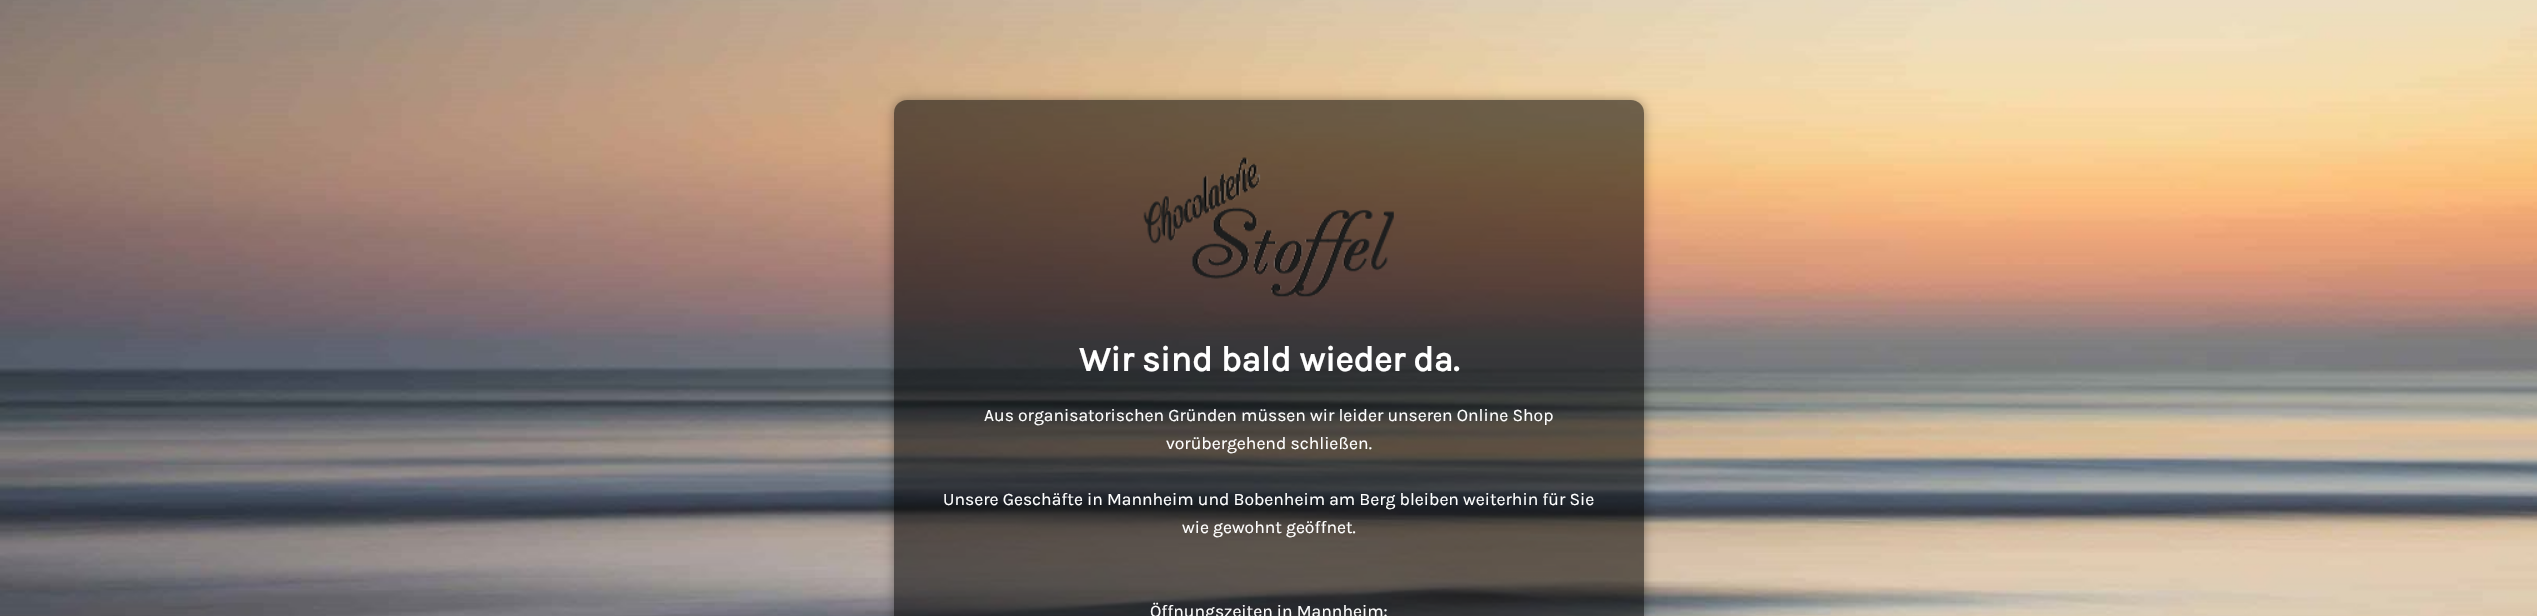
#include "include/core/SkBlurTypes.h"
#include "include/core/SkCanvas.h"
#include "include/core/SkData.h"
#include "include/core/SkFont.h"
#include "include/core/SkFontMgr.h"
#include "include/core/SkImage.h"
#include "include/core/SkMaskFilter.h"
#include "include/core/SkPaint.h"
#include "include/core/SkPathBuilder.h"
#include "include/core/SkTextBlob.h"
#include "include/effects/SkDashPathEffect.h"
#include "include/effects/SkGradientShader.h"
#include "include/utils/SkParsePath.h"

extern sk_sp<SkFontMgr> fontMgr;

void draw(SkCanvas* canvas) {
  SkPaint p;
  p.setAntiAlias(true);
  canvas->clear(SK_ColorWHITE);
  canvas->drawImageRect(SkImages::DeferredFromEncodedData(SkData::MakeFromFileName("images/1.png")), SkRect::MakeLTRB(0, 0, 2537, 616), SkSamplingOptions());
  canvas->save();
  canvas->clipPath(SkPathBuilder(SkPathFillType::kEvenOdd).moveTo(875, 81).lineTo(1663, 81).lineTo(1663, 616).lineTo(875, 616).close().moveTo(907, 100).lineTo(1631, 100).cubicTo(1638, 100, 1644, 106, 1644, 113).lineTo(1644, 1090).cubicTo(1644, 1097, 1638, 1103, 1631, 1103).lineTo(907, 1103).cubicTo(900, 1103, 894, 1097, 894, 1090).lineTo(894, 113).cubicTo(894, 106, 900, 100, 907, 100).close().detach(), true);
  p.setColor(SkColorSetARGB(84, 0, 0, 0));
  p.setMaskFilter(SkMaskFilter::MakeBlur(kNormal_SkBlurStyle, 6));
  canvas->drawRoundRect(SkRect::MakeLTRB(894, 100, 1644, 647), 13, 13, p);
  p.setMaskFilter(nullptr);
  canvas->restore();
  p.setColor(SkColorSetARGB(140, 0, 0, 0));
  canvas->drawRoundRect(SkRect::MakeLTRB(894, 100, 1644, 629), 13, 13, p);
  canvas->drawImageRect(SkImages::DeferredFromEncodedData(SkData::MakeFromFileName("images/2.png")), SkRect::MakeLTRB(1143, 157, 1394, 297), SkSamplingOptions());
  SkFont font1(fontMgr->matchFamilyStyle("Karla", SkFontStyle::Bold()), 35);
  font1.setSubpixel(true);
  p.setColor(SK_ColorWHITE);
  canvas->drawString("Wir sind bald wieder da.", 1079, 371, font1, p);
  SkFont font2(fontMgr->matchFamilyStyle("Karla", SkFontStyle::Normal()), 17.5f);
  font2.setSubpixel(true);
  canvas->drawString("Aus organisatorischen Gründen müssen wir leider unseren Online Shop", 984, 421, font2, p);
  canvas->drawString("vorübergehend schließen.", 1166, 449, font2, p);
  canvas->drawString("Unsere Geschäfte in Mannheim und Bobenheim am Berg bleiben weiterhin für Sie", 943, 505, font2, p);
  canvas->drawString("wie gewohnt geöffnet.", 1182, 533, font2, p);
  canvas->drawString("Öffnungszeiten in Mannheim:", 1150, 617, font2, p);
}
